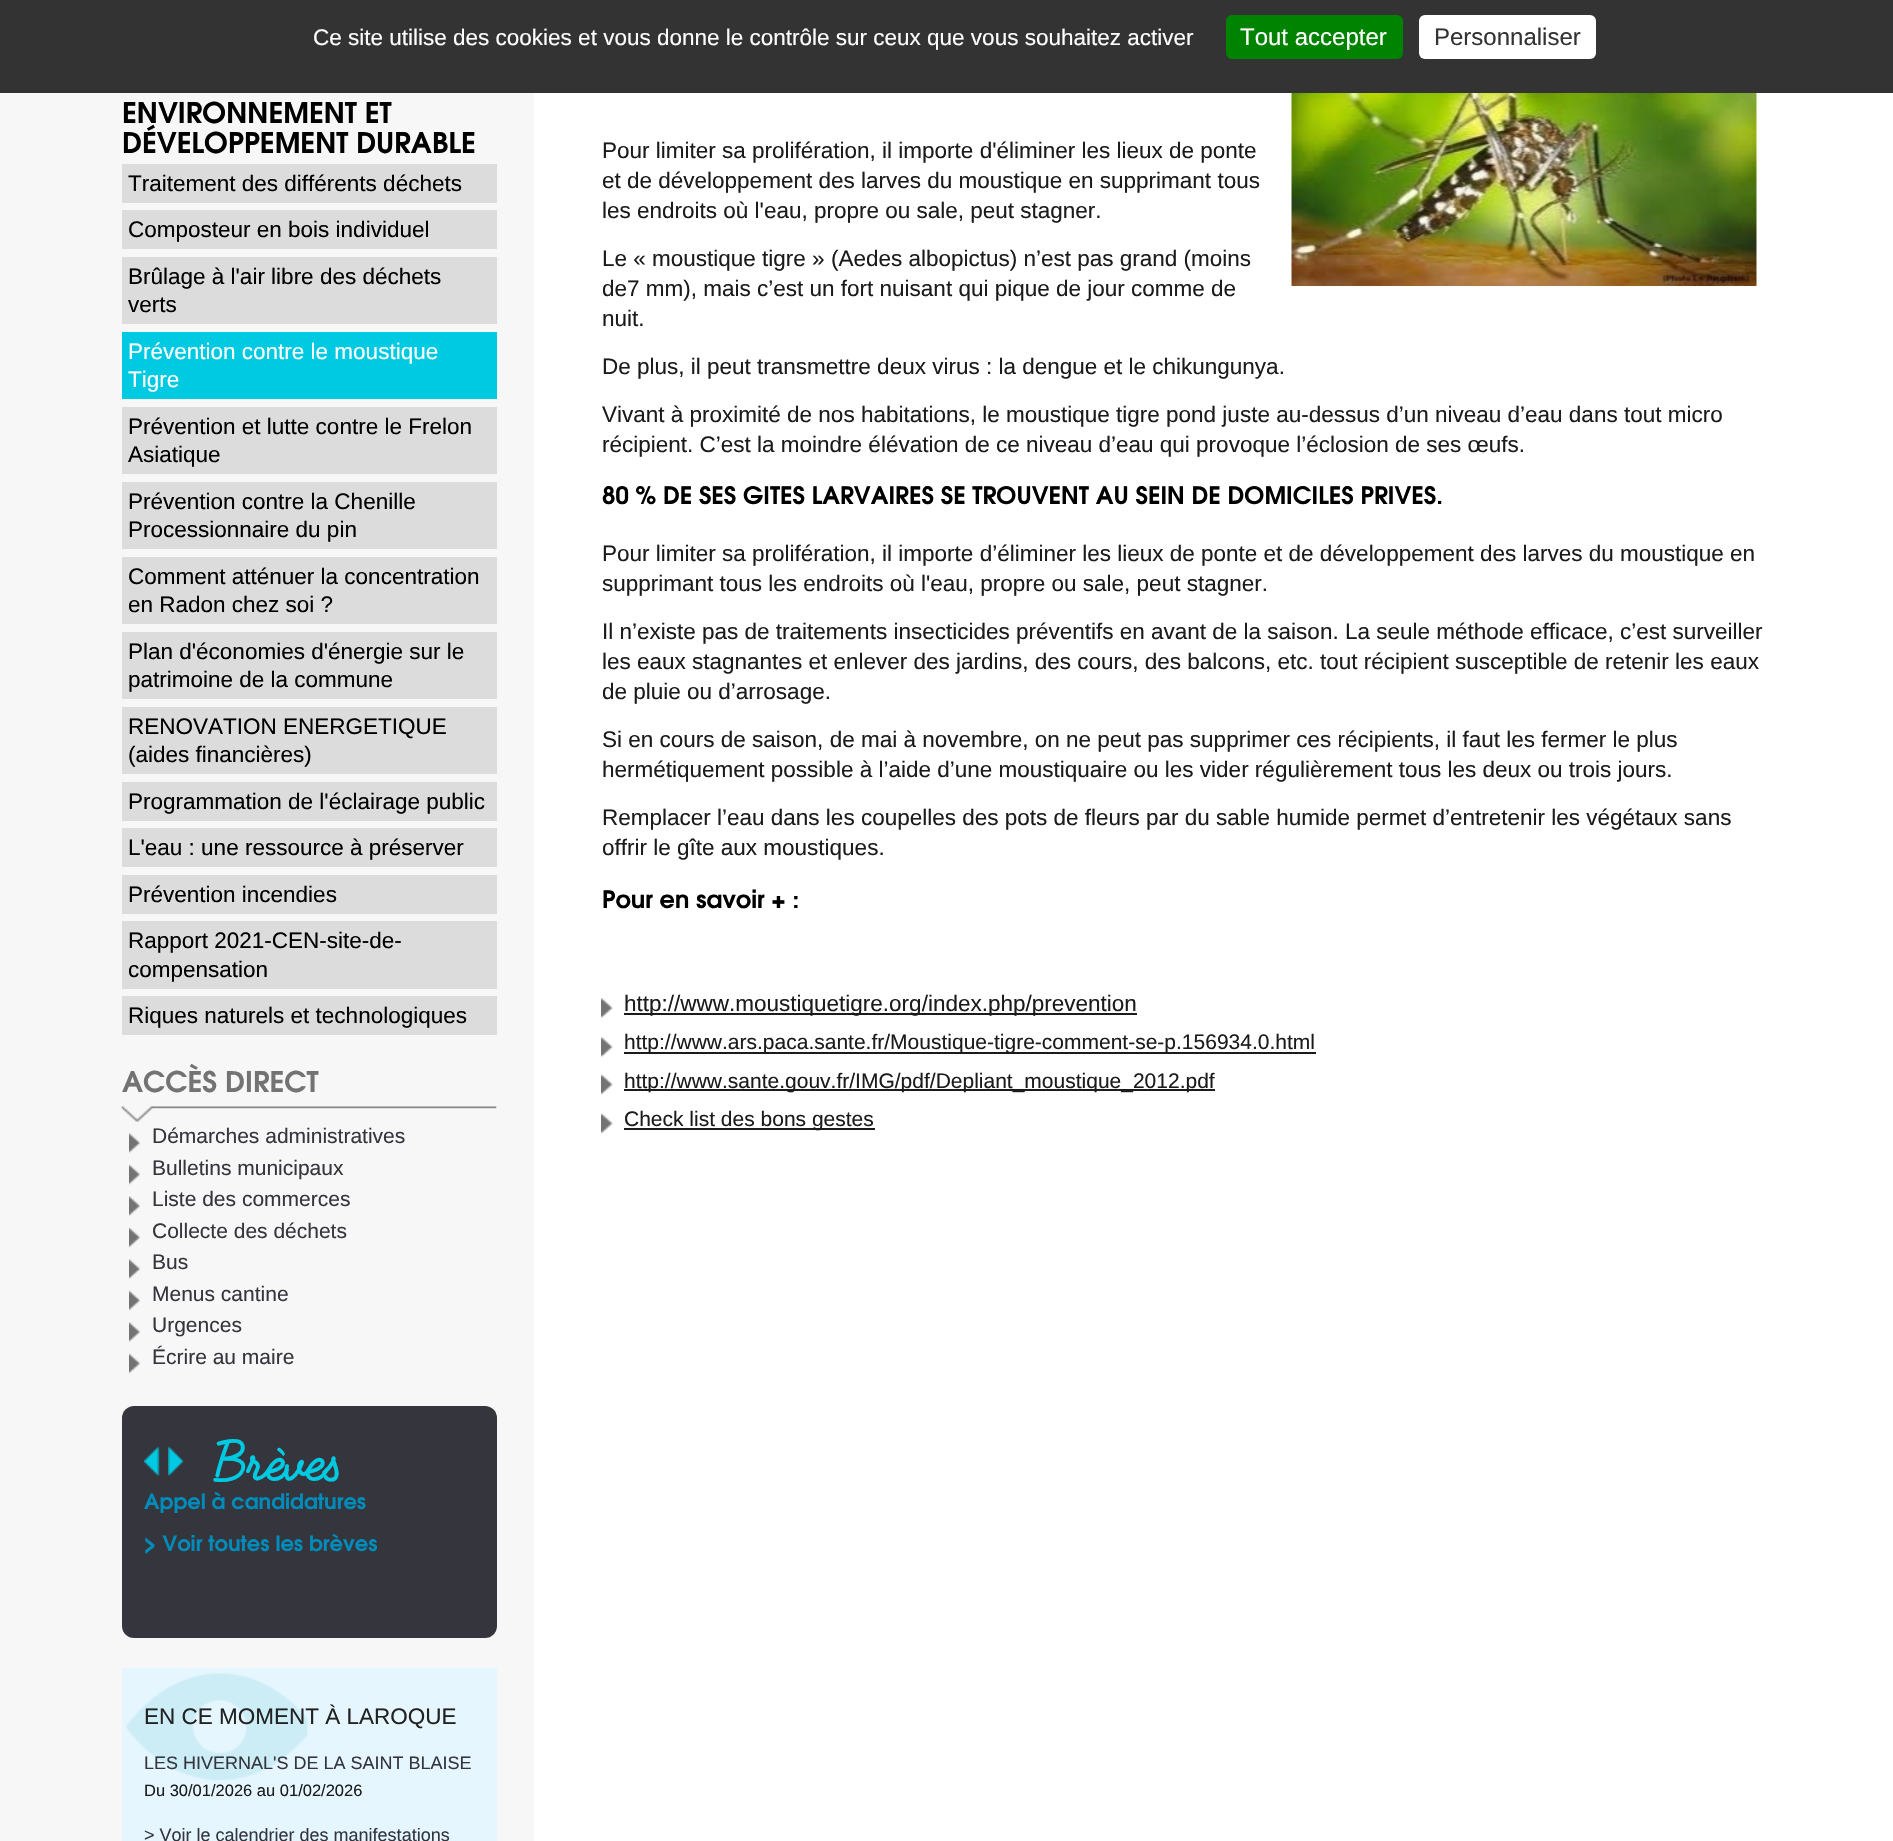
#include "include/core/SkBlurTypes.h"
#include "include/core/SkCanvas.h"
#include "include/core/SkData.h"
#include "include/core/SkFont.h"
#include "include/core/SkFontMgr.h"
#include "include/core/SkImage.h"
#include "include/core/SkMaskFilter.h"
#include "include/core/SkPaint.h"
#include "include/core/SkPathBuilder.h"
#include "include/core/SkTextBlob.h"
#include "include/effects/SkDashPathEffect.h"
#include "include/effects/SkGradientShader.h"
#include "include/utils/SkParsePath.h"

extern sk_sp<SkFontMgr> fontMgr;

void draw(SkCanvas* canvas) {
  SkPaint p;
  p.setAntiAlias(true);
  canvas->clear(SK_ColorWHITE);
  p.setColor(SkColorSetRGB(51, 51, 51));
  canvas->drawRect(SkRect::MakeLTRB(0, 0, 1893, 93), p);
  p.setColor(SkColorSetRGB(0, 131, 0));
  canvas->drawRoundRect(SkRect::MakeLTRB(1226, 15, 1403, 59), 6, 6, p);
  p.setColor(SK_ColorWHITE);
  canvas->drawRoundRect(SkRect::MakeLTRB(1419, 15, 1596, 59), 6, 6, p);
  p.setColor(SkColorSetRGB(247, 247, 247));
  canvas->drawRect(SkRect::MakeLTRB(0, 93, 534, 1841), p);
  p.setColor(SkColorSetRGB(220, 220, 220));
  canvas->drawRect(SkRect::MakeLTRB(122, 164, 497, 203), p);
  canvas->drawRect(SkRect::MakeLTRB(122, 210, 497, 249), p);
  canvas->drawRect(SkRect::MakeLTRB(122, 257, 497, 324), p);
  p.setColor(SkColorSetRGB(0, 202, 225));
  canvas->drawRect(SkRect::MakeLTRB(122, 332, 497, 399), p);
  p.setColor(SkColorSetRGB(220, 220, 220));
  canvas->drawRect(SkRect::MakeLTRB(122, 407, 497, 474), p);
  canvas->drawRect(SkRect::MakeLTRB(122, 482, 497, 549), p);
  canvas->drawRect(SkRect::MakeLTRB(122, 557, 497, 624), p);
  canvas->drawRect(SkRect::MakeLTRB(122, 632, 497, 699), p);
  canvas->drawRect(SkRect::MakeLTRB(122, 707, 497, 774), p);
  canvas->drawRect(SkRect::MakeLTRB(122, 782, 497, 821), p);
  canvas->drawRect(SkRect::MakeLTRB(122, 828, 497, 867), p);
  canvas->drawRect(SkRect::MakeLTRB(122, 875, 497, 914), p);
  canvas->drawRect(SkRect::MakeLTRB(122, 921, 497, 989), p);
  canvas->drawRect(SkRect::MakeLTRB(122, 996, 497, 1035), p);
  canvas->drawImageRect(SkImages::DeferredFromEncodedData(SkData::MakeFromFileName("images/1.png")), SkRect::MakeLTRB(121, 1106, 497, 1122), SkSamplingOptions());
  canvas->drawImageRect(SkImages::DeferredFromEncodedData(SkData::MakeFromFileName("images/2.png")), SkRect::MakeLTRB(129, 1133, 140, 1154), SkSamplingOptions());
  canvas->drawImageRect(SkImages::DeferredFromEncodedData(SkData::MakeFromFileName("images/3.png")), SkRect::MakeLTRB(129, 1164, 140, 1185), SkSamplingOptions());
  canvas->drawImageRect(SkImages::DeferredFromEncodedData(SkData::MakeFromFileName("images/2.png")), SkRect::MakeLTRB(129, 1196, 140, 1217), SkSamplingOptions());
  canvas->drawImageRect(SkImages::DeferredFromEncodedData(SkData::MakeFromFileName("images/3.png")), SkRect::MakeLTRB(129, 1227, 140, 1248), SkSamplingOptions());
  canvas->drawImageRect(SkImages::DeferredFromEncodedData(SkData::MakeFromFileName("images/2.png")), SkRect::MakeLTRB(129, 1259, 140, 1280), SkSamplingOptions());
  canvas->drawImageRect(SkImages::DeferredFromEncodedData(SkData::MakeFromFileName("images/3.png")), SkRect::MakeLTRB(129, 1290, 140, 1311), SkSamplingOptions());
  canvas->drawImageRect(SkImages::DeferredFromEncodedData(SkData::MakeFromFileName("images/2.png")), SkRect::MakeLTRB(129, 1322, 140, 1343), SkSamplingOptions());
  canvas->drawImageRect(SkImages::DeferredFromEncodedData(SkData::MakeFromFileName("images/3.png")), SkRect::MakeLTRB(129, 1353, 140, 1374), SkSamplingOptions());
  p.setColor(SkColorSetRGB(53, 53, 61));
  canvas->drawRoundRect(SkRect::MakeLTRB(122, 1406, 497, 1638), 12, 12, p);
  canvas->drawImageRect(SkImages::DeferredFromEncodedData(SkData::MakeFromFileName("images/4.png")), SkRect::MakeLTRB(144, 1446, 160, 1476), SkSamplingOptions());
  canvas->drawImageRect(SkImages::DeferredFromEncodedData(SkData::MakeFromFileName("images/5.png")), SkRect::MakeLTRB(168, 1446, 184, 1476), SkSamplingOptions());
  p.setColor(SkColorSetRGB(229, 246, 255));
  canvas->drawRect(SkRect::MakeLTRB(122, 1668, 497, 1841), p);
  canvas->drawImageRect(SkImages::DeferredFromEncodedData(SkData::MakeFromFileName("images/6.png")), SkRect::MakeLTRB(126, 1673, 308, 1781), SkSamplingOptions());
  canvas->drawImageRect(SkImages::DeferredFromEncodedData(SkData::MakeFromFileName("images/7.png")), SkRect::MakeLTRB(1291, 93, 1757, 286), SkSamplingOptions());
  canvas->drawImageRect(SkImages::DeferredFromEncodedData(SkData::MakeFromFileName("images/8.png")), SkRect::MakeLTRB(601, 998, 613, 1018), SkSamplingOptions());
  p.setColor(SkColorSetRGB(27, 27, 27));
  canvas->drawRect(SkRect::MakeLTRB(624, 1013, 1137, 1015), p);
  canvas->drawImageRect(SkImages::DeferredFromEncodedData(SkData::MakeFromFileName("images/8.png")), SkRect::MakeLTRB(601, 1037, 613, 1057), SkSamplingOptions());
  canvas->drawRect(SkRect::MakeLTRB(624, 1052, 1316, 1054), p);
  canvas->drawImageRect(SkImages::DeferredFromEncodedData(SkData::MakeFromFileName("images/9.png")), SkRect::MakeLTRB(601, 1074, 613, 1095), SkSamplingOptions());
  canvas->drawRect(SkRect::MakeLTRB(624, 1089, 1215, 1091), p);
  canvas->drawImageRect(SkImages::DeferredFromEncodedData(SkData::MakeFromFileName("images/9.png")), SkRect::MakeLTRB(601, 1113, 613, 1134), SkSamplingOptions());
  canvas->drawRect(SkRect::MakeLTRB(624, 1128, 875, 1130), p);
  SkFont font1(fontMgr->matchFamilyStyle("Liberation Sans", SkFontStyle::Normal()), 22.5f);
  font1.setSubpixel(true);
  p.setColor(SK_ColorWHITE);
  canvas->drawString("Ce site utilise des cookies et vous donne le contrôle sur ceux que vous souhaitez activer", 313, 45, font1, p);
  SkFont font2(fontMgr->matchFamilyStyle("Liberation Sans", SkFontStyle::Normal()), 24);
  font2.setSubpixel(true);
  canvas->drawString("Tout accepter", 1240, 45, font2, p);
  p.setColor(SkColorSetRGB(51, 51, 51));
  canvas->drawString("Personnaliser", 1434, 45, font2, p);
  SkFont font3(fontMgr->matchFamilyStyle("TeX Gyre Adventor", SkFontStyle::Bold()), 28.5f);
  font3.setSubpixel(true);
  p.setColor(SK_ColorBLACK);
  canvas->drawString("ENVIRONNEMENT ET", 122, 123, font3, p);
  canvas->drawString("DÉVELOPPEMENT DURABLE", 122, 153, font3, p);
  canvas->drawString("Traitement des différents déchets", 128, 191, font1, p);
  canvas->drawString("Composteur en bois individuel", 128, 237, font1, p);
  canvas->drawString("Brûlage à l'air libre des déchets", 128, 284, font1, p);
  canvas->drawString("verts", 128, 312, font1, p);
  p.setColor(SK_ColorWHITE);
  canvas->drawString("Prévention contre le moustique", 128, 359, font1, p);
  canvas->drawString("Tigre", 128, 387, font1, p);
  p.setColor(SK_ColorBLACK);
  canvas->drawString("Prévention et lutte contre le Frelon", 128, 434, font1, p);
  canvas->drawString("Asiatique", 128, 462, font1, p);
  canvas->drawString("Prévention contre la Chenille", 128, 509, font1, p);
  canvas->drawString("Processionnaire du pin", 128, 537, font1, p);
  canvas->drawString("Comment atténuer la concentration", 128, 584, font1, p);
  canvas->drawString("en Radon chez soi ?", 128, 612, font1, p);
  canvas->drawString("Plan d'économies d'énergie sur le", 128, 659, font1, p);
  canvas->drawString("patrimoine de la commune", 128, 687, font1, p);
  canvas->drawString("RENOVATION ENERGETIQUE", 128, 734, font1, p);
  canvas->drawString("(aides financières)", 128, 762, font1, p);
  canvas->drawString("Programmation de l'éclairage public", 128, 809, font1, p);
  canvas->drawString("L'eau : une ressource à préserver", 128, 855, font1, p);
  canvas->drawString("Prévention incendies", 128, 902, font1, p);
  canvas->drawString("Rapport 2021-CEN-site-de-", 128, 948, font1, p);
  canvas->drawString("compensation", 128, 977, font1, p);
  canvas->drawString("Riques naturels et technologiques", 128, 1023, font1, p);
  p.setColor(SkColorSetRGB(115, 115, 115));
  canvas->drawString("ACCÈS DIRECT", 122, 1092, font3, p);
  SkFont font4(fontMgr->matchFamilyStyle("Liberation Sans", SkFontStyle::Normal()), 21);
  font4.setSubpixel(true);
  p.setColor(SkColorSetRGB(53, 53, 61));
  canvas->drawString("Démarches administratives", 152, 1143, font4, p);
  canvas->drawString("Bulletins municipaux", 152, 1175, font4, p);
  canvas->drawString("Liste des commerces", 152, 1206, font4, p);
  canvas->drawString("Collecte des déchets", 152, 1238, font4, p);
  canvas->drawString("Bus", 152, 1269, font4, p);
  canvas->drawString("Menus cantine", 152, 1301, font4, p);
  canvas->drawString("Urgences", 152, 1332, font4, p);
  canvas->drawString("Écrire au maire", 152, 1364, font4, p);
  SkFont font5(fontMgr->matchFamilyStyle("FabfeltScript", SkFontStyle::Bold()), 54);
  font5.setSubpixel(true);
  p.setColor(SkColorSetRGB(0, 202, 225));
  canvas->drawString("Brèves", 212, 1478, font5, p);
  SkFont font6(fontMgr->matchFamilyStyle("TeX Gyre Adventor", SkFontStyle::Bold()), 21);
  font6.setSubpixel(true);
  p.setColor(SkColorSetRGB(0, 140, 186));
  canvas->drawString("Appel à candidatures", 144, 1509, font6, p);
  canvas->drawString("> Voir toutes les brèves", 144, 1551, font6, p);
  p.setColor(SkColorSetRGB(34, 34, 34));
  canvas->drawString("EN CE MOMENT À LAROQUE", 144, 1724, font1, p);
  SkFont font7(fontMgr->matchFamilyStyle("Liberation Sans", SkFontStyle::Normal()), 18);
  font7.setSubpixel(true);
  p.setColor(SkColorSetRGB(53, 53, 61));
  canvas->drawString("LES HIVERNAL'S DE LA SAINT BLAISE", 144, 1769, font7, p);
  SkFont font8(fontMgr->matchFamilyStyle("Liberation Sans", SkFontStyle::Normal()), 16.5f);
  font8.setSubpixel(true);
  p.setColor(SkColorSetRGB(27, 27, 27));
  canvas->drawString("Du 30/01/2026 au 01/02/2026", 144, 1796, font8, p);
  p.setColor(SkColorSetRGB(53, 53, 61));
  canvas->drawString("> Voir le calendrier des manifestations", 144, 1841, font7, p);
  p.setColor(SkColorSetRGB(27, 27, 27));
  canvas->drawString("Pour limiter sa prolifération, il importe d'éliminer les lieux de ponte", 602, 158, font1, p);
  canvas->drawString("et de développement des larves du moustique en supprimant tous", 602, 188, font1, p);
  canvas->drawString("les endroits où l'eau, propre ou sale, peut stagner.", 602, 218, font1, p);
  canvas->drawString("Le « moustique tigre » (Aedes albopictus) n’est pas grand (moins", 602, 266, font1, p);
  canvas->drawString("de7 mm), mais c’est un fort nuisant qui pique de jour comme de", 602, 296, font1, p);
  canvas->drawString("nuit.", 602, 326, font1, p);
  canvas->drawString("De plus, il peut transmettre deux virus : la dengue et le chikungunya.", 602, 374, font1, p);
  canvas->drawString("Vivant à proximité de nos habitations, le moustique tigre pond juste au-dessus d’un niveau d’eau dans tout micro", 602, 422, font1, p);
  canvas->drawString("récipient. C’est la moindre élévation de ce niveau d’eau qui provoque l’éclosion de ses œufs.", 602, 452, font1, p);
  SkFont font9(fontMgr->matchFamilyStyle("TeX Gyre Adventor", SkFontStyle::Bold()), 24);
  font9.setSubpixel(true);
  p.setColor(SK_ColorBLACK);
  canvas->drawString("80 % DE SES GITES LARVAIRES SE TROUVENT AU SEIN DE DOMICILES PRIVES.", 602, 504, font9, p);
  p.setColor(SkColorSetRGB(27, 27, 27));
  canvas->drawString("Pour limiter sa prolifération, il importe d’éliminer les lieux de ponte et de développement des larves du moustique en", 602, 561, font1, p);
  canvas->drawString("supprimant tous les endroits où l'eau, propre ou sale, peut stagner.", 602, 591, font1, p);
  canvas->drawString("Il n’existe pas de traitements insecticides préventifs en avant de la saison. La seule méthode efficace, c’est surveiller", 602, 639, font1, p);
  canvas->drawString("les eaux stagnantes et enlever des jardins, des cours, des balcons, etc. tout récipient susceptible de retenir les eaux", 602, 669, font1, p);
  canvas->drawString("de pluie ou d’arrosage.", 602, 699, font1, p);
  canvas->drawString("Si en cours de saison, de mai à novembre, on ne peut pas supprimer ces récipients, il faut les fermer le plus", 602, 747, font1, p);
  canvas->drawString("hermétiquement possible à l’aide d’une moustiquaire ou les vider régulièrement tous les deux ou trois jours.", 602, 777, font1, p);
  canvas->drawString("Remplacer l’eau dans les coupelles des pots de fleurs par du sable humide permet d’entretenir les végétaux sans", 602, 825, font1, p);
  canvas->drawString("offrir le gîte aux moustiques.", 602, 855, font1, p);
  p.setColor(SK_ColorBLACK);
  canvas->drawString("Pour en savoir + :", 602, 908, font9, p);
  p.setColor(SkColorSetRGB(27, 27, 27));
  canvas->drawString("http://www.moustiquetigre.org/index.php/prevention", 624, 1011, font1, p);
  canvas->drawString("http://www.ars.paca.sante.fr/Moustique-tigre-comment-se-p.156934.0.html", 624, 1049, font4, p);
  canvas->drawString("http://www.sante.gouv.fr/IMG/pdf/Depliant_moustique_2012.pdf", 624, 1088, font4, p);
  canvas->drawString("Check list des bons gestes", 624, 1126, font4, p);
}
